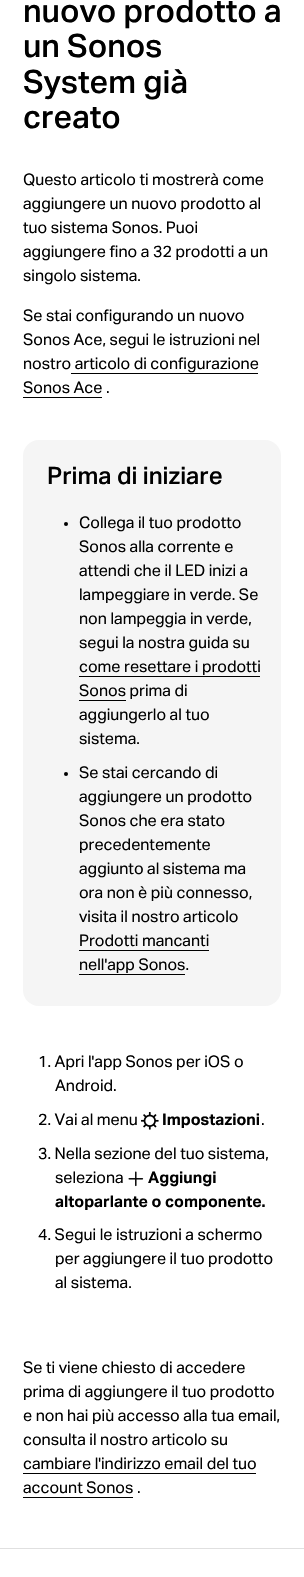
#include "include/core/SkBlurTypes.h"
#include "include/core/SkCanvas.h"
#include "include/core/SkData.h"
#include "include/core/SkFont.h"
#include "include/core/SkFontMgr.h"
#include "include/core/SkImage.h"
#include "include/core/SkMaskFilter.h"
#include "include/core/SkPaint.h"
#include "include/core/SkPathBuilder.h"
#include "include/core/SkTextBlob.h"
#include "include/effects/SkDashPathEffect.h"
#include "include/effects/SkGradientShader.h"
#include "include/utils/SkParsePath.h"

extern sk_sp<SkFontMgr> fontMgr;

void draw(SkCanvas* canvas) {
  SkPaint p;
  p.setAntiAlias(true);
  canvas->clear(SK_ColorWHITE);
  p.setColor(SkColorSetRGB(224, 224, 224));
  canvas->drawRect(SkRect::MakeLTRB(0, 1548, 304, 1549), p);
  p.setColor(SK_ColorBLACK);
  canvas->drawRect(SkRect::MakeLTRB(71, 373, 258, 374), p);
  canvas->drawRect(SkRect::MakeLTRB(23, 397, 102, 398), p);
  p.setColor(SkColorSetRGB(245, 245, 245));
  canvas->drawRoundRect(SkRect::MakeLTRB(23, 440, 281, 1006), 16, 16, p);
  p.setColor(SK_ColorBLACK);
  canvas->drawCircle(66, 524, 2, p);
  canvas->drawRect(SkRect::MakeLTRB(79, 676, 260, 677), p);
  canvas->drawRect(SkRect::MakeLTRB(79, 700, 126, 701), p);
  canvas->drawCircle(66, 774, 2, p);
  canvas->drawRect(SkRect::MakeLTRB(79, 950, 209, 951), p);
  canvas->drawRect(SkRect::MakeLTRB(79, 974, 185, 975), p);
  canvas->drawImageRect(SkImages::DeferredFromEncodedData(SkData::MakeFromFileName("images/1.png")), SkRect::MakeLTRB(141, 1112, 159, 1130), SkSamplingOptions());
  canvas->drawImageRect(SkImages::DeferredFromEncodedData(SkData::MakeFromFileName("images/2.png")), SkRect::MakeLTRB(128, 1171, 144, 1187), SkSamplingOptions());
  canvas->drawRect(SkRect::MakeLTRB(23, 1473, 256, 1474), p);
  canvas->drawRect(SkRect::MakeLTRB(23, 1497, 133, 1498), p);
  SkFont font1(fontMgr->matchFamilyStyle("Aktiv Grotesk", SkFontStyle(500, SkFontStyle::kNormal_Width, SkFontStyle::kUpright_Slant)), 32);
  font1.setSubpixel(true);
  canvas->drawString("nuovo prodotto a", 23, 22, font1, p);
  canvas->drawString("un Sonos", 23, 57, font1, p);
  canvas->drawString("System già", 23, 93, font1, p);
  canvas->drawString("creato", 23, 128, font1, p);
  SkFont font2(fontMgr->matchFamilyStyle("Aktiv Grotesk", SkFontStyle::Normal()), 16);
  font2.setSubpixel(true);
  canvas->drawString("Questo articolo ti mostrerà come", 23, 185, font2, p);
  canvas->drawString("aggiungere un nuovo prodotto al", 23, 209, font2, p);
  canvas->drawString("tuo sistema Sonos. Puoi", 23, 233, font2, p);
  canvas->drawString("aggiungere fino a 32 prodotti a un", 23, 257, font2, p);
  canvas->drawString("singolo sistema.", 23, 281, font2, p);
  canvas->drawString("Se stai configurando un nuovo", 23, 321, font2, p);
  canvas->drawString("Sonos Ace, segui le istruzioni nel", 23, 345, font2, p);
  canvas->drawString("nostro articolo di configurazione", 23, 369, font2, p);
  canvas->drawString("Sonos Ace .", 23, 393, font2, p);
  SkFont font3(fontMgr->matchFamilyStyle("Aktiv Grotesk", SkFontStyle(500, SkFontStyle::kNormal_Width, SkFontStyle::kUpright_Slant)), 24);
  font3.setSubpixel(true);
  canvas->drawString("Prima di iniziare", 47, 484, font3, p);
  canvas->drawString("Collega il tuo prodotto", 79, 528, font2, p);
  canvas->drawString("Sonos alla corrente e", 79, 552, font2, p);
  canvas->drawString("attendi che il LED inizi a", 79, 576, font2, p);
  canvas->drawString("lampeggiare in verde. Se", 79, 600, font2, p);
  canvas->drawString("non lampeggia in verde,", 79, 624, font2, p);
  canvas->drawString("segui la nostra guida su", 79, 648, font2, p);
  canvas->drawString("come resettare i prodotti", 79, 672, font2, p);
  canvas->drawString("Sonos prima di", 79, 696, font2, p);
  canvas->drawString("aggiungerlo al tuo", 79, 720, font2, p);
  canvas->drawString("sistema.", 79, 744, font2, p);
  canvas->drawString("Se stai cercando di", 79, 778, font2, p);
  canvas->drawString("aggiungere un prodotto", 79, 802, font2, p);
  canvas->drawString("Sonos che era stato", 79, 826, font2, p);
  canvas->drawString("precedentemente", 79, 850, font2, p);
  canvas->drawString("aggiunto al sistema ma", 79, 874, font2, p);
  canvas->drawString("ora non è più connesso,", 79, 898, font2, p);
  canvas->drawString("visita il nostro articolo", 79, 922, font2, p);
  canvas->drawString("Prodotti mancanti", 79, 946, font2, p);
  canvas->drawString("nell'app Sonos.", 79, 970, font2, p);
  canvas->drawString("1. Apri l'app Sonos per iOS o", 38, 1067, font2, p);
  canvas->drawString("Android.", 55, 1091, font2, p);
  canvas->drawString("2. Vai al menu", 38, 1125, font2, p);
  SkFont font4(fontMgr->matchFamilyStyle("Aktiv Grotesk", SkFontStyle::Bold()), 16);
  font4.setSubpixel(true);
  canvas->drawString("Impostazioni", 162, 1125, font4, p);
  canvas->drawString(".", 261, 1125, font2, p);
  canvas->drawString("3. Nella sezione del tuo sistema,", 38, 1159, font2, p);
  canvas->drawString("seleziona", 55, 1183, font2, p);
  canvas->drawString("Aggiungi", 148, 1183, font4, p);
  canvas->drawString("altoparlante o componente.", 55, 1207, font4, p);
  canvas->drawString("4. Segui le istruzioni a schermo", 38, 1240, font2, p);
  canvas->drawString("per aggiungere il tuo prodotto", 55, 1264, font2, p);
  canvas->drawString("al sistema.", 55, 1288, font2, p);
  canvas->drawString("Se ti viene chiesto di accedere", 23, 1373, font2, p);
  canvas->drawString("prima di aggiungere il tuo prodotto", 23, 1397, font2, p);
  canvas->drawString("e non hai più accesso alla tua email,", 23, 1421, font2, p);
  canvas->drawString("consulta il nostro articolo su", 23, 1445, font2, p);
  canvas->drawString("cambiare l'indirizzo email del tuo", 23, 1469, font2, p);
  canvas->drawString("account Sonos .", 23, 1493, font2, p);
}
